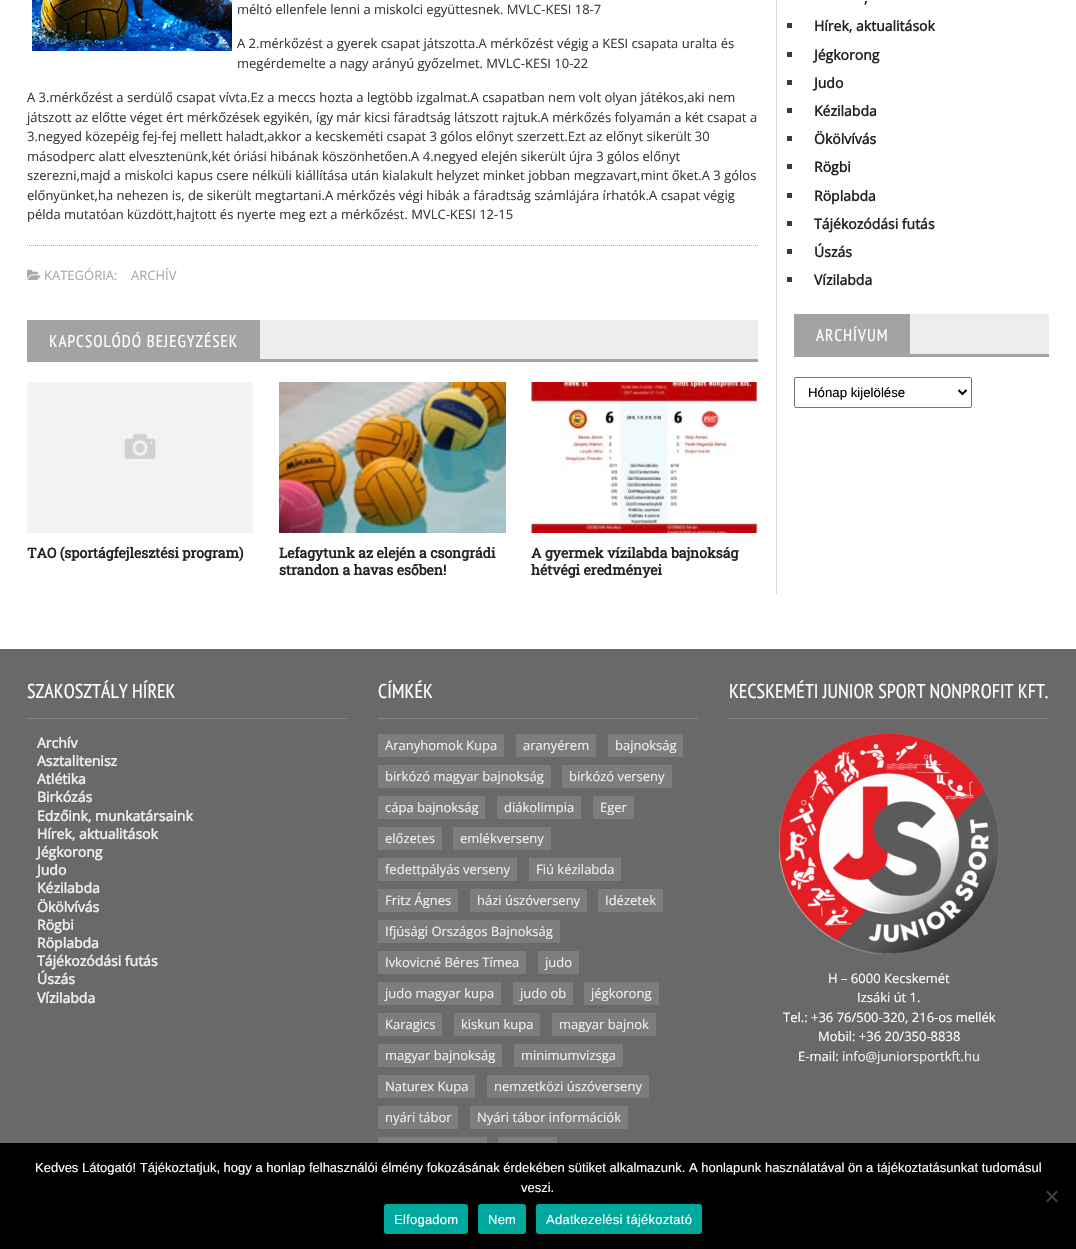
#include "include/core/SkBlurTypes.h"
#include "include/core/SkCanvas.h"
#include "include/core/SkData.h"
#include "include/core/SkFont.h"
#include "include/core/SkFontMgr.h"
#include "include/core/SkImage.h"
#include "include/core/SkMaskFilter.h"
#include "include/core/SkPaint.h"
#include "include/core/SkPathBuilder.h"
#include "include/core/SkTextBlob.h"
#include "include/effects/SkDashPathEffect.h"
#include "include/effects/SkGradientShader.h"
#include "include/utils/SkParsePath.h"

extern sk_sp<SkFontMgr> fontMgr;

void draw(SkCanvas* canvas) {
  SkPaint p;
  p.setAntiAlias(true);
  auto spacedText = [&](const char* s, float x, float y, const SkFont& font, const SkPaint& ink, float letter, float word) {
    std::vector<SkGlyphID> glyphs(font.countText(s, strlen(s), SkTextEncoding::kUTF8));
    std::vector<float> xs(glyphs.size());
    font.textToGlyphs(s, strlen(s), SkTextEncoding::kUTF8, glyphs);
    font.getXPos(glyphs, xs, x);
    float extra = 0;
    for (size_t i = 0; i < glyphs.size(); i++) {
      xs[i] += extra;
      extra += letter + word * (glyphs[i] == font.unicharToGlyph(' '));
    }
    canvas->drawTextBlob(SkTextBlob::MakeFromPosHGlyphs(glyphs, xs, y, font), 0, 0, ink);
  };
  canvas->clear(SK_ColorWHITE);
  canvas->drawImageRect(SkImages::DeferredFromEncodedData(SkData::MakeFromFileName("images/1.png")), SkRect::MakeLTRB(32, 0, 232, 51), SkSamplingOptions());
  p.setStyle(SkPaint::kStroke_Style);
  p.setStrokeWidth(1);
  p.setColor(SkColorSetRGB(170, 170, 170));
  p.setPathEffect(SkDashPathEffect::Make({{1, 1}}, 0));
  canvas->drawPath(SkPathBuilder().moveTo(27, 245.5f).lineTo(758, 245.5f).detach(), p);
  p.setPathEffect(nullptr);
  canvas->drawImageRect(SkImages::DeferredFromEncodedData(SkData::MakeFromFileName("images/2.png")), SkRect::MakeLTRB(27, 269, 41, 280), SkSamplingOptions());
  p.setStyle(SkPaint::kFill_Style);
  p.setColor(SkColorSetRGB(237, 237, 237));
  canvas->drawRect(SkRect::MakeLTRB(260, 320, 758, 359), p);
  p.setColor(SkColorSetRGB(163, 163, 166));
  canvas->drawRect(SkRect::MakeLTRB(27, 320, 260, 359), p);
  canvas->drawRect(SkRect::MakeLTRB(27, 359, 758, 362), p);
  canvas->drawImageRect(SkImages::DeferredFromEncodedData(SkData::MakeFromFileName("images/3.png")), SkRect::MakeLTRB(27, 382, 253, 533), SkSamplingOptions());
  canvas->drawImageRect(SkImages::DeferredFromEncodedData(SkData::MakeFromFileName("images/4.png")), SkRect::MakeLTRB(279, 382, 506, 533), SkSamplingOptions());
  canvas->drawImageRect(SkImages::DeferredFromEncodedData(SkData::MakeFromFileName("images/5.png")), SkRect::MakeLTRB(531, 382, 758, 533), SkSamplingOptions());
  p.setColor(SkColorSetRGB(217, 217, 217));
  canvas->drawRect(SkRect::MakeLTRB(776, 0, 777, 594), p);
  p.setColor(SkColorSetRGB(59, 59, 59));
  canvas->drawRect(SkRect::MakeLTRB(787, 23, 792, 28), p);
  canvas->drawRect(SkRect::MakeLTRB(787, 52, 792, 57), p);
  canvas->drawRect(SkRect::MakeLTRB(787, 80, 792, 85), p);
  canvas->drawRect(SkRect::MakeLTRB(787, 108, 792, 113), p);
  canvas->drawRect(SkRect::MakeLTRB(787, 136, 792, 141), p);
  canvas->drawRect(SkRect::MakeLTRB(787, 164, 792, 169), p);
  canvas->drawRect(SkRect::MakeLTRB(787, 193, 792, 198), p);
  canvas->drawRect(SkRect::MakeLTRB(787, 221, 792, 226), p);
  canvas->drawRect(SkRect::MakeLTRB(787, 249, 792, 254), p);
  canvas->drawRect(SkRect::MakeLTRB(787, 277, 792, 282), p);
  p.setColor(SkColorSetRGB(237, 237, 237));
  canvas->drawRect(SkRect::MakeLTRB(910, 314, 1049, 354), p);
  p.setColor(SkColorSetRGB(163, 163, 166));
  canvas->drawRect(SkRect::MakeLTRB(794, 314, 910, 354), p);
  canvas->drawRect(SkRect::MakeLTRB(794, 354, 1049, 357), p);
  p.setStyle(SkPaint::kStroke_Style);
  p.setColor(SkColorSetRGB(118, 118, 118));
  canvas->drawRoundRect(SkRect::MakeLTRB(794.5f, 377.5f, 971.5f, 407.5f), 1.5f, 1.5f, p);
  p.setStrokeWidth(2);
  p.setColor(SK_ColorBLACK);
  canvas->drawPath(SkPathBuilder().moveTo(958.5f, 390).lineTo(962.5f, 394).lineTo(966.5f, 390).detach(), p);
  p.setStyle(SkPaint::kFill_Style);
  p.setColor(SkColorSetRGB(105, 105, 105));
  canvas->drawRect(SkRect::MakeLTRB(0, 649, 1076, 1143), p);
  p.setColor(SkColorSetRGB(135, 135, 135));
  canvas->drawRect(SkRect::MakeLTRB(27, 718, 347, 719), p);
  canvas->drawRect(SkRect::MakeLTRB(378, 718, 698, 719), p);
  p.setColor(SkColorSetRGB(125, 125, 125));
  canvas->drawRect(SkRect::MakeLTRB(378, 734, 504, 757), p);
  canvas->drawRect(SkRect::MakeLTRB(516, 734, 596, 757), p);
  canvas->drawRect(SkRect::MakeLTRB(608, 734, 683, 757), p);
  canvas->drawRect(SkRect::MakeLTRB(378, 765, 551, 788), p);
  canvas->drawRect(SkRect::MakeLTRB(562, 765, 672, 788), p);
  canvas->drawRect(SkRect::MakeLTRB(378, 796, 485, 819), p);
  canvas->drawRect(SkRect::MakeLTRB(497, 796, 581, 819), p);
  canvas->drawRect(SkRect::MakeLTRB(593, 796, 634, 819), p);
  canvas->drawRect(SkRect::MakeLTRB(378, 827, 442, 850), p);
  canvas->drawRect(SkRect::MakeLTRB(453, 827, 551, 850), p);
  canvas->drawRect(SkRect::MakeLTRB(378, 858, 517, 881), p);
  canvas->drawRect(SkRect::MakeLTRB(529, 858, 621, 881), p);
  canvas->drawRect(SkRect::MakeLTRB(378, 889, 458, 912), p);
  canvas->drawRect(SkRect::MakeLTRB(470, 889, 587, 912), p);
  canvas->drawRect(SkRect::MakeLTRB(598, 889, 663, 912), p);
  canvas->drawRect(SkRect::MakeLTRB(378, 920, 560, 943), p);
  canvas->drawRect(SkRect::MakeLTRB(378, 951, 526, 974), p);
  canvas->drawRect(SkRect::MakeLTRB(538, 951, 579, 974), p);
  canvas->drawRect(SkRect::MakeLTRB(378, 982, 501, 1005), p);
  canvas->drawRect(SkRect::MakeLTRB(513, 982, 573, 1005), p);
  canvas->drawRect(SkRect::MakeLTRB(584, 982, 659, 1005), p);
  canvas->drawRect(SkRect::MakeLTRB(378, 1013, 442, 1036), p);
  canvas->drawRect(SkRect::MakeLTRB(454, 1013, 540, 1036), p);
  canvas->drawRect(SkRect::MakeLTRB(552, 1013, 656, 1036), p);
  canvas->drawRect(SkRect::MakeLTRB(378, 1044, 502, 1067), p);
  canvas->drawRect(SkRect::MakeLTRB(514, 1044, 623, 1067), p);
  canvas->drawRect(SkRect::MakeLTRB(378, 1075, 475, 1098), p);
  canvas->drawRect(SkRect::MakeLTRB(487, 1075, 649, 1098), p);
  canvas->drawRect(SkRect::MakeLTRB(378, 1106, 458, 1129), p);
  canvas->drawRect(SkRect::MakeLTRB(470, 1106, 628, 1129), p);
  canvas->drawRect(SkRect::MakeLTRB(378, 1137, 487, 1143), p);
  canvas->drawRect(SkRect::MakeLTRB(498, 1137, 557, 1143), p);
  p.setColor(SkColorSetRGB(135, 135, 135));
  canvas->drawRect(SkRect::MakeLTRB(729, 718, 1049, 719), p);
  canvas->drawImageRect(SkImages::DeferredFromEncodedData(SkData::MakeFromFileName("images/6.png")), SkRect::MakeLTRB(779, 734, 999, 954), SkSamplingOptions());
  p.setColor(SK_ColorBLACK);
  canvas->drawRect(SkRect::MakeLTRB(0, 1143, 1076, 1249), p);
  p.setColor(SkColorSetRGB(64, 64, 64));
  canvas->drawPath(SkPathBuilder().moveTo(1056.5f, 1190.5f).lineTo(1058, 1192).lineTo(1047.5f, 1202.5f).lineTo(1046, 1201).close().detach(), p);
  canvas->drawPath(SkPathBuilder().moveTo(1046, 1192).lineTo(1047.5f, 1190.5f).lineTo(1058, 1201).lineTo(1056.5f, 1202.5f).close().detach(), p);
  p.setColor(SkColorSetRGB(0, 169, 157));
  canvas->drawRoundRect(SkRect::MakeLTRB(384, 1204, 468, 1234), 3, 3, p);
  canvas->drawRoundRect(SkRect::MakeLTRB(478, 1204, 526, 1234), 3, 3, p);
  canvas->drawRoundRect(SkRect::MakeLTRB(536, 1204, 702, 1234), 3, 3, p);
  SkFont font1(fontMgr->matchFamilyStyle("Open Sans", SkFontStyle::Normal()), 13);
  font1.setSubpixel(true);
  p.setColor(SkColorSetRGB(59, 59, 59));
  canvas->drawString("méltó ellenfele lenni a miskolci együttesnek. MVLC-KESI 18-7", 237, 14, font1, p);
  canvas->drawString("A 2.mérkőzést a gyerek csapat játszotta.A mérkőzést végig a KESI csapata uralta és", 237, 48, font1, p);
  canvas->drawString("megérdemelte a nagy arányú győzelmet. MVLC-KESI 10-22", 237, 68, font1, p);
  canvas->drawString("A 3.mérkőzést a serdülő csapat vívta.Ez a meccs hozta a legtöbb izgalmat.A csapatban nem volt olyan játékos,aki nem", 27, 102, font1, p);
  canvas->drawString("játszott az előtte véget ért mérkőzések egyikén, így már kicsi fáradtság látszott rajtuk.A mérkőzés folyamán a két csapat a", 27, 122, font1, p);
  canvas->drawString("3.negyed közepéig fej-fej mellett haladt,akkor a kecskeméti csapat 3 gólos előnyt szerzett.Ezt az előnyt sikerült 30", 27, 141, font1, p);
  canvas->drawString("másodperc alatt elvesztenünk,két óriási hibának köszönhetően.A 4.negyed elején sikerült újra 3 gólos előnyt", 27, 161, font1, p);
  canvas->drawString("szerezni,majd a miskolci kapus csere nélküli kiállítása után kialakult helyzet minket jobban megzavart,mint őket.A 3 gólos", 27, 180, font1, p);
  canvas->drawString("előnyünket,ha nehezen is, de sikerült megtartani.A mérkőzés végi hibák a fáradtság számlájára írhatók.A csapat végig", 27, 200, font1, p);
  canvas->drawString("példa mutatóan küzdött,hajtott és nyerte meg ezt a mérkőzést. MVLC-KESI 12-15", 27, 219, font1, p);
  p.setColor(SkColorSetRGB(170, 170, 170));
  canvas->drawString("KATEGÓRIA:", 44, 280, font1, p);
  canvas->drawString("ARCHÍV", 131, 280, font1, p);
  SkFont font2(fontMgr->matchFamilyStyle("PT Sans Narrow", SkFontStyle::Normal()), 17);
  font2.setSubpixel(true);
  p.setColor(SK_ColorWHITE);
  spacedText("KAPCSOLÓDÓ BEJEGYZÉSEK", 49, 347, font2, p, 1, 0);
  SkFont font3(fontMgr->matchFamilyStyle("Roboto Slab", SkFontStyle::Bold()), 14);
  font3.setSubpixel(true);
  p.setColor(SkColorSetRGB(35, 35, 35));
  canvas->drawString("TAO (sportágfejlesztési program)", 27, 558, font3, p);
  canvas->drawString("Lefagytunk az elején a csongrádi", 279, 558, font3, p);
  canvas->drawString("strandon a havas esőben!", 279, 575, font3, p);
  canvas->drawString("A gyermek vízilabda bajnokság", 531, 558, font3, p);
  canvas->drawString("hétvégi eredményei", 531, 575, font3, p);
  SkFont font4(fontMgr->matchFamilyStyle("Open Sans", SkFontStyle::Bold()), 14);
  font4.setSubpixel(true);
  canvas->drawString(",", 864, 3, font4, p);
  canvas->drawString("Hírek, aktualitások", 814, 31, font4, p);
  canvas->drawString("Jégkorong", 814, 60, font4, p);
  canvas->drawString("Judo", 814, 88, font4, p);
  canvas->drawString("Kézilabda", 814, 116, font4, p);
  canvas->drawString("Ökölvívás", 814, 144, font4, p);
  canvas->drawString("Rögbi", 814, 172, font4, p);
  canvas->drawString("Röplabda", 814, 201, font4, p);
  canvas->drawString("Tájékozódási futás", 814, 229, font4, p);
  canvas->drawString("Úszás", 814, 257, font4, p);
  canvas->drawString("Vízilabda", 814, 285, font4, p);
  p.setColor(SK_ColorWHITE);
  spacedText("ARCHÍVUM", 816, 341, font2, p, 1, 0);
  SkFont font5(fontMgr->matchFamilyStyle("Liberation Sans", SkFontStyle::Normal()), 13.25f);
  font5.setSubpixel(true);
  p.setColor(SK_ColorBLACK);
  canvas->drawString("Hónap kijelölése", 808, 397, font5, p);
  SkFont font6(fontMgr->matchFamilyStyle("PT Sans Narrow", SkFontStyle::Normal()), 20);
  font6.setSubpixel(true);
  p.setColor(SK_ColorWHITE);
  canvas->drawString("SZAKOSZTÁLY HÍREK", 27, 698, font6, p);
  p.setColor(SkColorSetRGB(237, 239, 238));
  canvas->drawString("Archív", 37, 748, font4, p);
  canvas->drawString("Asztalitenisz", 37, 766, font4, p);
  canvas->drawString("Atlétika", 37, 784, font4, p);
  canvas->drawString("Birkózás", 37, 802, font4, p);
  canvas->drawString("Edzőink, munkatársaink", 37, 821, font4, p);
  canvas->drawString("Hírek, aktualitások", 37, 839, font4, p);
  canvas->drawString("Jégkorong", 37, 857, font4, p);
  canvas->drawString("Judo", 37, 875, font4, p);
  canvas->drawString("Kézilabda", 37, 893, font4, p);
  canvas->drawString("Ökölvívás", 37, 912, font4, p);
  canvas->drawString("Rögbi", 37, 930, font4, p);
  canvas->drawString("Röplabda", 37, 948, font4, p);
  canvas->drawString("Tájékozódási futás", 37, 966, font4, p);
  canvas->drawString("Úszás", 37, 984, font4, p);
  canvas->drawString("Vízilabda", 37, 1003, font4, p);
  p.setColor(SK_ColorWHITE);
  canvas->drawString("CÍMKÉK", 378, 698, font6, p);
  p.setColor(SkColorSetRGB(237, 239, 238));
  canvas->drawString("Aranyhomok Kupa", 385, 750, font1, p);
  canvas->drawString("aranyérem", 523, 750, font1, p);
  canvas->drawString("bajnokság", 615, 750, font1, p);
  canvas->drawString("birkózó magyar bajnokság", 385, 781, font1, p);
  canvas->drawString("birkózó verseny", 569, 781, font1, p);
  canvas->drawString("cápa bajnokság", 385, 812, font1, p);
  canvas->drawString("diákolimpia", 504, 812, font1, p);
  canvas->drawString("Eger", 600, 812, font1, p);
  canvas->drawString("előzetes", 385, 843, font1, p);
  canvas->drawString("emlékverseny", 460, 843, font1, p);
  canvas->drawString("fedettpályás verseny", 385, 874, font1, p);
  canvas->drawString("Fiú kézilabda", 536, 874, font1, p);
  canvas->drawString("Fritz Ágnes", 385, 905, font1, p);
  canvas->drawString("házi úszóverseny", 477, 905, font1, p);
  canvas->drawString("Idézetek", 605, 905, font1, p);
  canvas->drawString("Ifjúsági Országos Bajnokság", 385, 936, font1, p);
  canvas->drawString("Ivkovicné Béres Tímea", 385, 967, font1, p);
  canvas->drawString("judo", 545, 967, font1, p);
  canvas->drawString("judo magyar kupa", 385, 998, font1, p);
  canvas->drawString("judo ob", 520, 998, font1, p);
  canvas->drawString("jégkorong", 591, 998, font1, p);
  canvas->drawString("Karagics", 385, 1029, font1, p);
  canvas->drawString("kiskun kupa", 461, 1029, font1, p);
  canvas->drawString("magyar bajnok", 559, 1029, font1, p);
  canvas->drawString("magyar bajnokság", 385, 1060, font1, p);
  canvas->drawString("minimumvizsga", 521, 1060, font1, p);
  canvas->drawString("Naturex Kupa", 385, 1091, font1, p);
  canvas->drawString("nemzetközi úszóverseny", 494, 1091, font1, p);
  canvas->drawString("nyári tábor", 385, 1122, font1, p);
  canvas->drawString("Nyári tábor információk", 477, 1122, font1, p);
  p.setColor(SK_ColorWHITE);
  canvas->drawString("KECSKEMÉTI JUNIOR SPORT NONPROFIT KFT.", 729, 698, font6, p);
  canvas->drawString("H – 6000 Kecskemét", 828, 983, font1, p);
  canvas->drawString("Izsáki út 1.", 857, 1002, font1, p);
  canvas->drawString("Tel.: +36 76/500-320, 216-os mellék", 783, 1022, font1, p);
  canvas->drawString("Mobil: +36 20/350-8838", 818, 1041, font1, p);
  canvas->drawString("E-mail:", 798, 1061, font1, p);
  p.setColor(SkColorSetRGB(237, 239, 238));
  canvas->drawString("info@juniorsportkft.hu", 842, 1061, font1, p);
  SkFont font7(fontMgr->matchFamilyStyle("Liberation Sans", SkFontStyle::Normal()), 13);
  font7.setSubpixel(true);
  p.setColor(SK_ColorWHITE);
  canvas->drawString("Kedves Látogató! Tájékoztatjuk, hogy a honlap felhasználói élmény fokozásának érdekében sütiket alkalmazunk. A honlapunk használatával ön a tájékoztatásunkat tudomásul", 35, 1172, font7, p);
  canvas->drawString("veszi.", 521, 1192, font7, p);
  spacedText("Elfogadom", 394, 1224, font7, p, 0.25f, 0);
  spacedText("Nem", 488, 1224, font7, p, 0.25f, 0);
  spacedText("Adatkezelési tájékoztató", 546, 1224, font7, p, 0.25f, 0);
}
